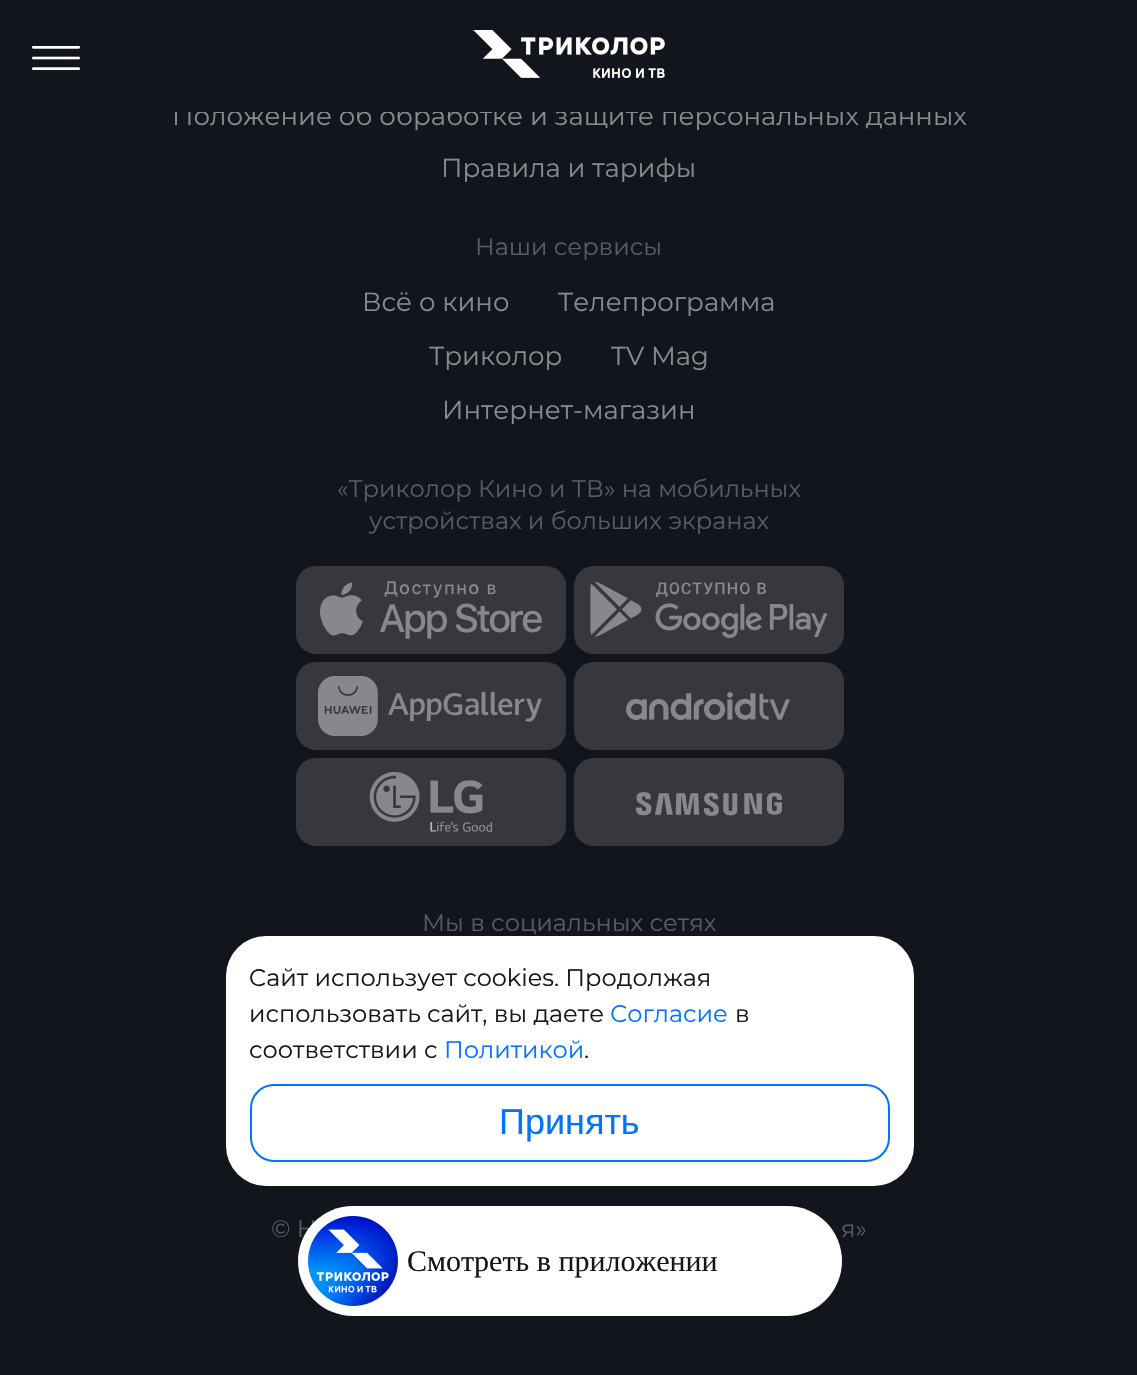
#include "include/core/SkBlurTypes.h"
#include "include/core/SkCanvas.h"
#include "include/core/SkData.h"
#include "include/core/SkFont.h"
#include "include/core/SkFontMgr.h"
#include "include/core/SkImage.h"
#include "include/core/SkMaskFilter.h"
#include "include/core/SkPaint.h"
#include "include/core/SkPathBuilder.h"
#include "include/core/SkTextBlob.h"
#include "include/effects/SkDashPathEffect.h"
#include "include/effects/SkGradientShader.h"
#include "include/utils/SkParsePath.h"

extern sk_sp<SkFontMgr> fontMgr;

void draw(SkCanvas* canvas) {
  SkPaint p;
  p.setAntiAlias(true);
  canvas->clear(SkColorSetRGB(18, 21, 28));
  canvas->drawImageRect(SkImages::DeferredFromEncodedData(SkData::MakeFromFileName("images/1.png")), SkRect::MakeLTRB(32, 46, 80, 70), SkSamplingOptions());
  canvas->drawImageRect(SkImages::DeferredFromEncodedData(SkData::MakeFromFileName("images/2.png")), SkRect::MakeLTRB(473, 30, 665, 78), SkSamplingOptions());
  p.setColor(SkColorSetRGB(54, 56, 62));
  canvas->drawRoundRect(SkRect::MakeLTRB(296, 566, 566, 654), 20, 20, p);
  canvas->drawImageRect(SkImages::DeferredFromEncodedData(SkData::MakeFromFileName("images/3.png")), SkRect::MakeLTRB(320, 581, 542, 639), SkSamplingOptions());
  canvas->drawRoundRect(SkRect::MakeLTRB(574, 566, 844, 654), 20, 20, p);
  canvas->drawImageRect(SkImages::DeferredFromEncodedData(SkData::MakeFromFileName("images/4.png")), SkRect::MakeLTRB(590, 582, 828, 638), SkSamplingOptions());
  canvas->drawRoundRect(SkRect::MakeLTRB(296, 662, 566, 750), 20, 20, p);
  canvas->drawImageRect(SkImages::DeferredFromEncodedData(SkData::MakeFromFileName("images/5.png")), SkRect::MakeLTRB(318, 676, 542, 736), SkSamplingOptions());
  canvas->drawRoundRect(SkRect::MakeLTRB(574, 662, 844, 750), 20, 20, p);
  canvas->drawImageRect(SkImages::DeferredFromEncodedData(SkData::MakeFromFileName("images/6.png")), SkRect::MakeLTRB(626, 692, 790, 720), SkSamplingOptions());
  canvas->drawRoundRect(SkRect::MakeLTRB(296, 758, 566, 846), 20, 20, p);
  canvas->drawImageRect(SkImages::DeferredFromEncodedData(SkData::MakeFromFileName("images/7.png")), SkRect::MakeLTRB(369, 772, 493, 832), SkSamplingOptions());
  canvas->drawRoundRect(SkRect::MakeLTRB(574, 758, 844, 846), 20, 20, p);
  canvas->drawImageRect(SkImages::DeferredFromEncodedData(SkData::MakeFromFileName("images/8.png")), SkRect::MakeLTRB(636, 792, 782, 816), SkSamplingOptions());
  p.setColor(SK_ColorWHITE);
  canvas->drawRoundRect(SkRect::MakeLTRB(226, 936, 914, 1186), 40, 40, p);
  p.setStyle(SkPaint::kStroke_Style);
  p.setStrokeWidth(2);
  p.setColor(SkColorSetRGB(0, 115, 255));
  canvas->drawRoundRect(SkRect::MakeLTRB(251, 1085, 889, 1161), 23, 23, p);
  SkFont font1(fontMgr->matchFamilyStyle("Montserrat", SkFontStyle::Normal()), 26);
  font1.setSubpixel(true);
  p.setStyle(SkPaint::kFill_Style);
  p.setColor(SkColorSetRGB(137, 138, 142));
  canvas->drawString("Положение об обработке и защите персональных данных", 172, 125, font1, p);
  p.setColor(SkColorSetRGB(18, 21, 28));
  canvas->drawRect(SkRect::MakeLTRB(174, 104, 966, 112), p);
  p.setColor(SkColorSetRGB(137, 138, 142));
  canvas->drawString("Правила и тарифы", 441, 177, font1, p);
  SkFont font2(fontMgr->matchFamilyStyle("Montserrat", SkFontStyle::Normal()), 24);
  font2.setSubpixel(true);
  p.setColor(SkColorSetRGB(89, 91, 96));
  canvas->drawString("Наши сервисы", 475, 255, font2, p);
  p.setColor(SkColorSetRGB(137, 138, 142));
  canvas->drawString("Всё о кино", 362, 311, font1, p);
  canvas->drawString("Телепрограмма", 558, 311, font1, p);
  canvas->drawString("Триколор", 429, 365, font1, p);
  canvas->drawString("TV Mag", 611, 365, font1, p);
  canvas->drawString("Интернет-магазин", 442, 419, font1, p);
  p.setColor(SkColorSetRGB(89, 91, 96));
  canvas->drawString("«Триколор Кино и ТВ» на мобильных", 337, 497, font2, p);
  canvas->drawString("устройствах и больших экранах", 369, 529, font2, p);
  canvas->drawString("Мы в социальных сетях", 422, 931, font2, p);
  canvas->drawString("© Н", 271, 1237, font2, p);
  canvas->drawString("я»", 841, 1237, font2, p);
  p.setColor(SK_ColorWHITE);
  canvas->drawRoundRect(SkRect::MakeLTRB(298, 1206, 842, 1316), 55, 55, p);
  canvas->drawImageRect(SkImages::DeferredFromEncodedData(SkData::MakeFromFileName("images/9.png")), SkRect::MakeLTRB(308, 1216, 398, 1306), SkSamplingOptions());
  SkFont font3(fontMgr->matchFamilyStyle("Liberation Serif", SkFontStyle::Normal()), 30);
  font3.setSubpixel(true);
  p.setColor(SkColorSetRGB(18, 21, 28));
  canvas->drawString("Смотреть в приложении", 407, 1271, font3, p);
  canvas->drawString("Cайт использует cookies. Продолжая", 249, 986, font2, p);
  canvas->drawString("использовать сайт, вы даете", 249, 1022, font2, p);
  p.setColor(SkColorSetRGB(0, 115, 255));
  canvas->drawString("Согласие", 610, 1022, font2, p);
  p.setColor(SkColorSetRGB(18, 21, 28));
  canvas->drawString("в", 735, 1022, font2, p);
  canvas->drawString("соответствии с", 249, 1058, font2, p);
  p.setColor(SkColorSetRGB(0, 115, 255));
  canvas->drawString("Политикой", 444, 1058, font2, p);
  p.setColor(SkColorSetRGB(18, 21, 28));
  canvas->drawString(".", 584, 1058, font2, p);
  SkFont font4(fontMgr->matchFamilyStyle("Liberation Sans", SkFontStyle::Normal()), 36);
  font4.setSubpixel(true);
  p.setColor(SkColorSetRGB(0, 115, 255));
  canvas->drawString("Принять", 499, 1134, font4, p);
}
